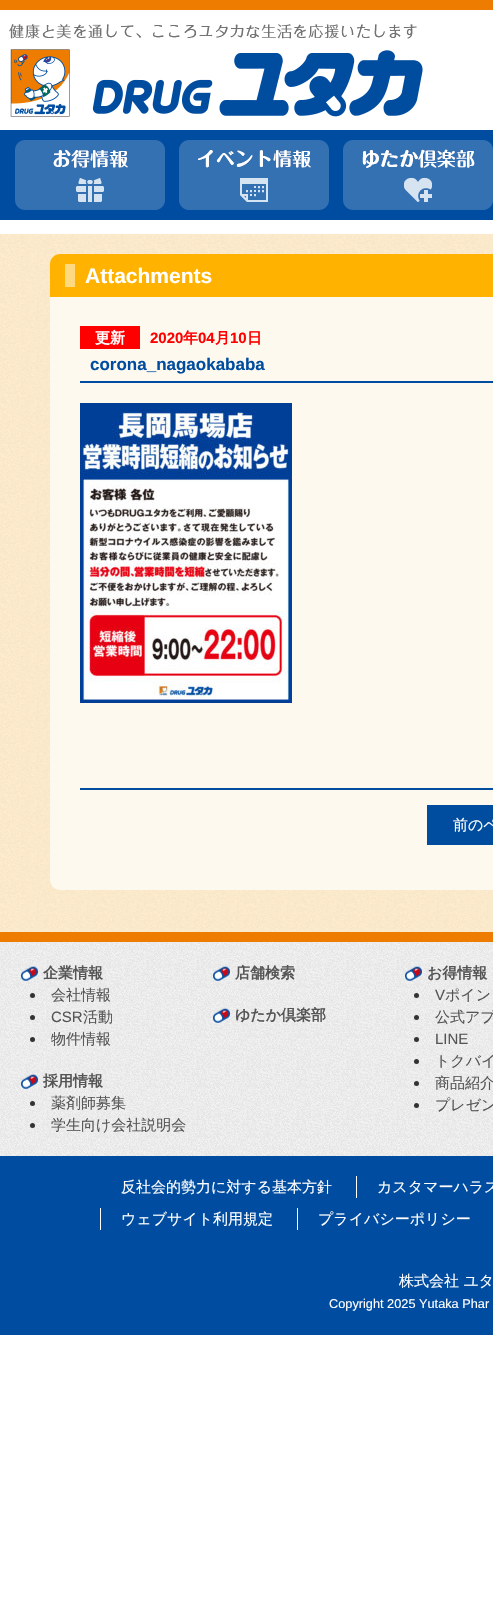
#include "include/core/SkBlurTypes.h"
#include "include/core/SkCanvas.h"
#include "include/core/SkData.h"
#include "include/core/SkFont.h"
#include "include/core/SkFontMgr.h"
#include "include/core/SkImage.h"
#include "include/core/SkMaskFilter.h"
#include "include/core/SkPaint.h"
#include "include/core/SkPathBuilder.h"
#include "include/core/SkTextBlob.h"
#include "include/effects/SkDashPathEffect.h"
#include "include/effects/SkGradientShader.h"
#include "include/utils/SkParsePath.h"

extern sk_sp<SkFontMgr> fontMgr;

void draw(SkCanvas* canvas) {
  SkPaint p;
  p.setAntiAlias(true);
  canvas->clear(SK_ColorWHITE);
  p.setColor(SkColorSetRGB(238, 124, 0));
  canvas->drawRect(SkRect::MakeLTRB(0, 0, 493, 10), p);
  canvas->drawImageRect(SkImages::DeferredFromEncodedData(SkData::MakeFromFileName("images/1.png")), SkRect::MakeLTRB(9, 24, 423, 117), SkSamplingOptions());
  p.setColor(SkColorSetRGB(0, 76, 160));
  canvas->drawRect(SkRect::MakeLTRB(0, 130, 493, 220), p);
  canvas->drawImageRect(SkImages::DeferredFromEncodedData(SkData::MakeFromFileName("images/2.png")), SkRect::MakeLTRB(15, 140, 165, 210), SkSamplingOptions());
  canvas->drawImageRect(SkImages::DeferredFromEncodedData(SkData::MakeFromFileName("images/3.png")), SkRect::MakeLTRB(179, 140, 329, 210), SkSamplingOptions());
  canvas->drawImageRect(SkImages::DeferredFromEncodedData(SkData::MakeFromFileName("images/4.png")), SkRect::MakeLTRB(343, 140, 493, 210), SkSamplingOptions());
  p.setColor(SkColorSetRGB(250, 233, 203));
  canvas->drawRect(SkRect::MakeLTRB(489, 234, 493, 932), p);
  canvas->drawImageRect(SkImages::DeferredFromEncodedData(SkData::MakeFromFileName("images/5.png")), SkRect::MakeLTRB(0, 234, 489, 932), SkSamplingOptions());
  p.setColor(SkColorSetRGB(253, 249, 238));
  canvas->drawRoundRect(SkRect::MakeLTRB(50, 254, 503, 890), 10, 10, p);
  p.setColor(SkColorSetRGB(255, 178, 0));
  canvas->drawPath(SkPathBuilder().moveTo(60, 254).lineTo(493, 254).cubicTo(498.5f, 254, 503, 258.5f, 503, 264).lineTo(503, 297).lineTo(50, 297).lineTo(50, 264).cubicTo(50, 258.5f, 54.5f, 254, 60, 254).close().detach(), p);
  p.setColor(SkColorSetRGB(255, 217, 128));
  canvas->drawRect(SkRect::MakeLTRB(65, 264, 75, 287), p);
  p.setColor(SkColorSetRGB(255, 0, 0));
  canvas->drawRect(SkRect::MakeLTRB(80, 326, 140, 349), p);
  p.setColor(SkColorSetRGB(0, 76, 160));
  canvas->drawRect(SkRect::MakeLTRB(80, 381, 493, 383), p);
  canvas->drawImageRect(SkImages::DeferredFromEncodedData(SkData::MakeFromFileName("images/6.png")), SkRect::MakeLTRB(80, 403, 292, 703), SkSamplingOptions());
  p.setColor(SkColorSetRGB(0, 77, 160));
  canvas->drawRect(SkRect::MakeLTRB(80, 788, 493, 790), p);
  p.setColor(SkColorSetRGB(0, 77, 159));
  canvas->drawRect(SkRect::MakeLTRB(427, 805, 493, 845), p);
  canvas->drawImageRect(SkImages::DeferredFromEncodedData(SkData::MakeFromFileName("images/7.png")), SkRect::MakeLTRB(0, 942, 493, 1156), SkSamplingOptions());
  p.setColor(SkColorSetRGB(238, 124, 0));
  canvas->drawRect(SkRect::MakeLTRB(0, 932, 493, 942), p);
  canvas->drawImageRect(SkImages::DeferredFromEncodedData(SkData::MakeFromFileName("images/8.png")), SkRect::MakeLTRB(21, 966, 38, 981), SkSamplingOptions());
  p.setColor(SkColorSetRGB(51, 51, 51));
  canvas->drawCircle(32.5f, 995.5f, 2.5f, p);
  canvas->drawCircle(32.5f, 1017.5f, 2.5f, p);
  canvas->drawCircle(32.5f, 1039.5f, 2.5f, p);
  canvas->drawImageRect(SkImages::DeferredFromEncodedData(SkData::MakeFromFileName("images/9.png")), SkRect::MakeLTRB(21, 1074, 38, 1089), SkSamplingOptions());
  canvas->drawCircle(32.5f, 1103.5f, 2.5f, p);
  canvas->drawCircle(32.5f, 1125.5f, 2.5f, p);
  canvas->drawImageRect(SkImages::DeferredFromEncodedData(SkData::MakeFromFileName("images/10.png")), SkRect::MakeLTRB(213, 966, 230, 981), SkSamplingOptions());
  canvas->drawImageRect(SkImages::DeferredFromEncodedData(SkData::MakeFromFileName("images/11.png")), SkRect::MakeLTRB(213, 1008, 230, 1023), SkSamplingOptions());
  canvas->drawImageRect(SkImages::DeferredFromEncodedData(SkData::MakeFromFileName("images/12.png")), SkRect::MakeLTRB(405, 966, 422, 981), SkSamplingOptions());
  canvas->drawCircle(416.5f, 995.5f, 2.5f, p);
  canvas->drawCircle(416.5f, 1017.5f, 2.5f, p);
  canvas->drawCircle(416.5f, 1039.5f, 2.5f, p);
  canvas->drawCircle(416.5f, 1061.5f, 2.5f, p);
  canvas->drawCircle(416.5f, 1083.5f, 2.5f, p);
  canvas->drawCircle(416.5f, 1105.5f, 2.5f, p);
  p.setColor(SkColorSetRGB(0, 76, 160));
  canvas->drawRect(SkRect::MakeLTRB(0, 1156, 493, 1335), p);
  p.setColor(SK_ColorWHITE);
  canvas->drawRect(SkRect::MakeLTRB(356, 1176, 357, 1198), p);
  canvas->drawRect(SkRect::MakeLTRB(100, 1208, 101, 1230), p);
  canvas->drawRect(SkRect::MakeLTRB(297, 1208, 298, 1230), p);
  SkFont font1(fontMgr->matchFamilyStyle("Liberation Sans", SkFontStyle::Bold()), 21);
  font1.setSubpixel(true);
  canvas->drawString("Attachments", 85, 283, font1, p);
  SkFont font2(fontMgr->matchFamilyStyle("WenQuanYi Zen Hei", SkFontStyle::Bold()), 15);
  font2.setSubpixel(true);
  canvas->drawString("更新", 95, 343, font2, p);
  SkFont font3(fontMgr->matchFamilyStyle("Liberation Sans", SkFontStyle::Bold()), 15);
  font3.setSubpixel(true);
  p.setColor(SkColorSetRGB(255, 0, 0));
  canvas->drawString("2020", 150, 343, font3, p);
  canvas->drawString("年", 183, 343, font2, p);
  canvas->drawString("04", 198, 343, font3, p);
  canvas->drawString("月", 215, 343, font2, p);
  canvas->drawString("10", 230, 343, font3, p);
  canvas->drawString("日", 247, 343, font2, p);
  SkFont font4(fontMgr->matchFamilyStyle("Liberation Sans", SkFontStyle::Bold()), 17);
  font4.setSubpixel(true);
  p.setColor(SkColorSetRGB(0, 76, 160));
  canvas->drawString("corona_nagaokababa", 90, 370, font4, p);
  SkFont font5(fontMgr->matchFamilyStyle("WenQuanYi Zen Hei", SkFontStyle(500, SkFontStyle::kNormal_Width, SkFontStyle::kUpright_Slant)), 15);
  font5.setSubpixel(true);
  p.setColor(SK_ColorWHITE);
  canvas->drawString("前のペ", 453, 830, font5, p);
  p.setColor(SkColorSetRGB(85, 85, 85));
  canvas->drawString("企業情報", 43, 978, font2, p);
  canvas->drawString("会社情報", 51, 1000, font5, p);
  SkFont font6(fontMgr->matchFamilyStyle("Liberation Sans", SkFontStyle::Normal()), 15);
  font6.setSubpixel(true);
  canvas->drawString("CSR", 51, 1022, font6, p);
  canvas->drawString("活動", 83, 1022, font5, p);
  canvas->drawString("物件情報", 51, 1044, font5, p);
  canvas->drawString("採用情報", 43, 1086, font2, p);
  canvas->drawString("薬剤師募集", 51, 1108, font5, p);
  canvas->drawString("学生向け会社説明会", 51, 1130, font5, p);
  canvas->drawString("店舗検索", 235, 978, font2, p);
  canvas->drawString("ゆたか倶楽部", 235, 1020, font2, p);
  canvas->drawString("お得情報", 427, 978, font2, p);
  canvas->drawString("V", 435, 1000, font6, p);
  canvas->drawString("ポイン", 445, 1000, font5, p);
  canvas->drawString("公式アプ", 435, 1022, font5, p);
  canvas->drawString("LINE", 435, 1044, font6, p);
  canvas->drawString("トクバイ", 435, 1066, font5, p);
  canvas->drawString("商品紹介", 435, 1088, font5, p);
  canvas->drawString("プレゼン", 435, 1110, font5, p);
  p.setColor(SK_ColorWHITE);
  canvas->drawString("反社会的勢力に対する基本方針", 121, 1192, font5, p);
  canvas->drawString("カスタマーハラス", 377, 1192, font5, p);
  canvas->drawString("ウェブサイト利用規定", 121, 1224, font5, p);
  canvas->drawString("プライバシーポリシー", 318, 1224, font5, p);
  canvas->drawString("株式会社 ユタ", 399, 1286, font5, p);
  SkFont font7(fontMgr->matchFamilyStyle("Liberation Sans", SkFontStyle::Normal()), 12.75f);
  font7.setSubpixel(true);
  canvas->drawString("Copyright 2025 Yutaka Phar", 329, 1308, font7, p);
}
